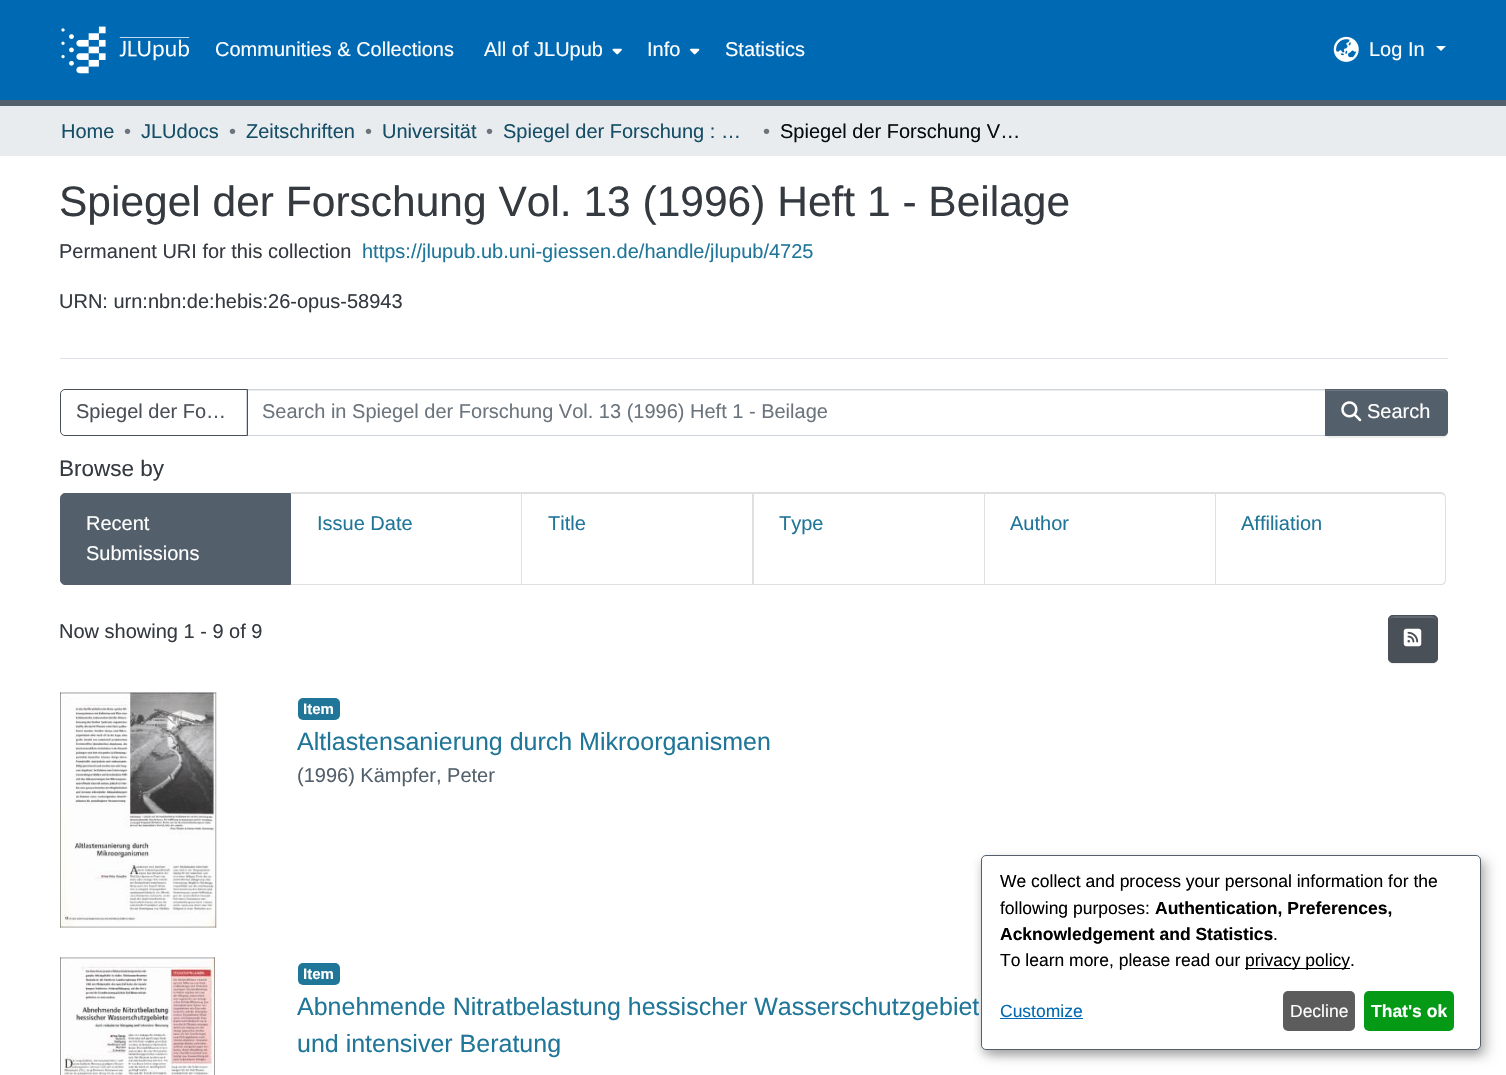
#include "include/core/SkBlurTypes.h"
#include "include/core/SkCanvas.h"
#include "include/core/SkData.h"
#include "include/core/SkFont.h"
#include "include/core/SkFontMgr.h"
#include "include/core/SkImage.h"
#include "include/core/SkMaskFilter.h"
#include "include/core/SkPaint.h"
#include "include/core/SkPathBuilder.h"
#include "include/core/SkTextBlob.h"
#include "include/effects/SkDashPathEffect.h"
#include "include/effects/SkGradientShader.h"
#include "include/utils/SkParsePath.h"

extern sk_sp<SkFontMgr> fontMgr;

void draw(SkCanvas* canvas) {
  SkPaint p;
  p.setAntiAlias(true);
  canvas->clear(SK_ColorWHITE);
  p.setColor(SkColorSetRGB(83, 96, 107));
  canvas->drawRect(SkRect::MakeLTRB(0, 100, 1506, 106), p);
  p.setColor(SkColorSetRGB(0, 105, 179));
  canvas->drawRect(SkRect::MakeLTRB(0, 0, 1506, 100), p);
  canvas->drawImageRect(SkImages::DeferredFromEncodedData(SkData::MakeFromFileName("images/1.png")), SkRect::MakeLTRB(61, 26, 190, 74), SkSamplingOptions());
  canvas->drawImageRect(SkImages::DeferredFromEncodedData(SkData::MakeFromFileName("images/2.png")), SkRect::MakeLTRB(612, 48, 622, 55), SkSamplingOptions());
  canvas->drawImageRect(SkImages::DeferredFromEncodedData(SkData::MakeFromFileName("images/3.png")), SkRect::MakeLTRB(690, 48, 700, 55), SkSamplingOptions());
  canvas->drawImageRect(SkImages::DeferredFromEncodedData(SkData::MakeFromFileName("images/4.png")), SkRect::MakeLTRB(1333, 36, 1359, 62), SkSamplingOptions());
  p.setColor(SK_ColorWHITE);
  canvas->drawPath(SkPathBuilder().moveTo(1436, 46).lineTo(1446, 46).lineTo(1441, 51).close().detach(), p);
  p.setColor(SkColorSetRGB(233, 236, 239));
  canvas->drawRect(SkRect::MakeLTRB(0, 106, 1506, 156), p);
  p.setColor(SkColorSetRGB(222, 226, 230));
  canvas->drawRect(SkRect::MakeLTRB(60, 358, 1448, 359), p);
  p.setColor(SkColorSetRGB(236, 236, 236));
  canvas->drawRect(SkRect::MakeLTRB(248, 390, 1325, 391), p);
  p.setStyle(SkPaint::kStroke_Style);
  p.setStrokeWidth(1);
  p.setColor(SkColorSetRGB(206, 212, 218));
  canvas->drawRect(SkRect::MakeLTRB(246.5f, 389.5f, 1325.5f, 435.5f), p);
  p.setColor(SkColorSetRGB(73, 80, 87));
  canvas->drawPath(SkPathBuilder().moveTo(65, 389.5f).lineTo(247.5f, 389.5f).lineTo(247.5f, 435.5f).lineTo(65, 435.5f).cubicTo(62.5f, 435.5f, 60.5f, 433.5f, 60.5f, 431).lineTo(60.5f, 394).cubicTo(60.5f, 391.5f, 62.5f, 389.5f, 65, 389.5f).close().detach(), p);
  p.setStyle(SkPaint::kFill_Style);
  p.setColor(SkColorSetARGB(18, 0, 0, 0));
  p.setMaskFilter(SkMaskFilter::MakeBlur(kNormal_SkBlurStyle, 0.5f));
  canvas->drawRoundRect(SkRect::MakeLTRB(1325, 390, 1448, 438), 5, 5, p);
  p.setMaskFilter(nullptr);
  p.setColor(SkColorSetRGB(83, 96, 107));
  canvas->drawPath(SkPathBuilder().moveTo(1325, 389).lineTo(1443, 389).cubicTo(1446, 389, 1448, 391, 1448, 394).lineTo(1448, 431).cubicTo(1448, 434, 1446, 436, 1443, 436).lineTo(1325, 436).close().detach(), p);
  p.setColor(SkColorSetRGB(109, 120, 129));
  canvas->drawPath(SkPathBuilder().moveTo(1326, 391).lineTo(1442, 391).cubicTo(1445, 391, 1446, 393, 1446, 395).lineTo(1446, 394).cubicTo(1446, 392, 1444, 390, 1442, 390).lineTo(1326, 390).close().detach(), p);
  p.setStyle(SkPaint::kStroke_Style);
  p.setColor(SkColorSetRGB(83, 96, 107));
  canvas->drawPath(SkPathBuilder().moveTo(1325.5f, 389.5f).lineTo(1443, 389.5f).cubicTo(1445.5f, 389.5f, 1447.5f, 391.5f, 1447.5f, 394).lineTo(1447.5f, 431).cubicTo(1447.5f, 433.5f, 1445.5f, 435.5f, 1443, 435.5f).lineTo(1325.5f, 435.5f).close().detach(), p);
  canvas->drawImageRect(SkImages::DeferredFromEncodedData(SkData::MakeFromFileName("images/5.png")), SkRect::MakeLTRB(1341, 401, 1362, 422), SkSamplingOptions());
  p.setStyle(SkPaint::kFill_Style);
  canvas->drawPath(SkPathBuilder().moveTo(65, 493.5f).lineTo(290.5f, 493.5f).lineTo(290.5f, 584.5f).lineTo(65, 584.5f).cubicTo(62.5f, 584.5f, 60.5f, 582.5f, 60.5f, 580).lineTo(60.5f, 498).cubicTo(60.5f, 495.5f, 62.5f, 493.5f, 65, 493.5f).close().detach(), p);
  p.setStyle(SkPaint::kStroke_Style);
  canvas->drawPath(SkPathBuilder().moveTo(65, 493.5f).lineTo(290.5f, 493.5f).lineTo(290.5f, 584.5f).lineTo(65, 584.5f).cubicTo(62.5f, 584.5f, 60.5f, 582.5f, 60.5f, 580).lineTo(60.5f, 498).cubicTo(60.5f, 495.5f, 62.5f, 493.5f, 65, 493.5f).close().detach(), p);
  p.setStyle(SkPaint::kFill_Style);
  p.setColor(SkColorSetRGB(223, 223, 223));
  canvas->drawPath(SkPathBuilder().moveTo(291, 492).lineTo(522, 492).lineTo(521, 494).lineTo(291, 494).close().detach(), p);
  p.setColor(SkColorSetARGB(31, 0, 0, 0));
  canvas->drawPath(SkPathBuilder().moveTo(522, 492).lineTo(522, 585).lineTo(521, 584).lineTo(521, 494).close().detach(), p);
  canvas->drawPath(SkPathBuilder().moveTo(522, 585).lineTo(291, 585).lineTo(291, 584).lineTo(521, 584).close().detach(), p);
  p.setColor(SkColorSetRGB(223, 223, 223));
  canvas->drawPath(SkPathBuilder().moveTo(522, 492).lineTo(754, 492).lineTo(752, 494).lineTo(522, 494).close().detach(), p);
  p.setColor(SkColorSetARGB(31, 0, 0, 0));
  canvas->drawPath(SkPathBuilder().moveTo(754, 492).lineTo(754, 585).lineTo(752, 584).lineTo(752, 494).close().detach(), p);
  canvas->drawPath(SkPathBuilder().moveTo(754, 585).lineTo(522, 585).lineTo(522, 584).lineTo(752, 584).close().detach(), p);
  p.setColor(SkColorSetRGB(223, 223, 223));
  canvas->drawPath(SkPathBuilder().moveTo(754, 492).lineTo(985, 492).lineTo(984, 494).lineTo(754, 494).close().detach(), p);
  p.setColor(SkColorSetARGB(31, 0, 0, 0));
  canvas->drawPath(SkPathBuilder().moveTo(985, 492).lineTo(985, 585).lineTo(984, 584).lineTo(984, 494).close().detach(), p);
  canvas->drawPath(SkPathBuilder().moveTo(985, 585).lineTo(754, 585).lineTo(754, 584).lineTo(984, 584).close().detach(), p);
  p.setColor(SkColorSetRGB(223, 223, 223));
  canvas->drawPath(SkPathBuilder().moveTo(985, 492).lineTo(1216, 492).lineTo(1215, 494).lineTo(985, 494).close().detach(), p);
  p.setColor(SkColorSetARGB(31, 0, 0, 0));
  canvas->drawPath(SkPathBuilder().moveTo(1216, 492).lineTo(1216, 585).lineTo(1215, 584).lineTo(1215, 494).close().detach(), p);
  canvas->drawPath(SkPathBuilder().moveTo(1216, 585).lineTo(985, 585).lineTo(985, 584).lineTo(1215, 584).close().detach(), p);
  p.setColor(SkColorSetRGB(223, 223, 223));
  canvas->drawPath(SkPathBuilder(SkPathFillType::kEvenOdd).moveTo(1216, 492).lineTo(1441, 492).cubicTo(1444, 492, 1446, 495, 1446, 498).lineTo(1446, 580).cubicTo(1446, 583, 1444, 585, 1441, 585).lineTo(1216, 585).close().moveTo(1216, 494).lineTo(1441, 494).cubicTo(1443, 494, 1445, 495, 1445, 498).lineTo(1445, 580).cubicTo(1445, 582, 1443, 584, 1441, 584).lineTo(1216, 584).close().detach(), p);
  p.setColor(SkColorSetARGB(18, 0, 0, 0));
  p.setMaskFilter(SkMaskFilter::MakeBlur(kNormal_SkBlurStyle, 0.5f));
  canvas->drawRoundRect(SkRect::MakeLTRB(1388, 616, 1438, 664), 5, 5, p);
  p.setMaskFilter(nullptr);
  p.setColor(SkColorSetRGB(73, 80, 87));
  canvas->drawRoundRect(SkRect::MakeLTRB(1388, 615, 1438, 663), 5, 5, p);
  p.setColor(SkColorSetRGB(100, 106, 112));
  canvas->drawPath(SkPathBuilder().moveTo(1392, 618).lineTo(1432, 618).cubicTo(1435, 618, 1436, 619, 1436, 621).cubicTo(1436, 615, 1430, 616, 1426, 616).lineTo(1400, 616).cubicTo(1395, 616, 1389, 615, 1389, 621).cubicTo(1389, 619, 1390, 618, 1392, 618).close().detach(), p);
  p.setStyle(SkPaint::kStroke_Style);
  p.setColor(SkColorSetRGB(73, 80, 87));
  canvas->drawRoundRect(SkRect::MakeLTRB(1388.5f, 615.5f, 1437.5f, 662.5f), 4.5f, 4.5f, p);
  canvas->drawImageRect(SkImages::DeferredFromEncodedData(SkData::MakeFromFileName("images/6.png")), SkRect::MakeLTRB(1403, 628, 1422, 647), SkSamplingOptions());
  canvas->drawImageRect(SkImages::DeferredFromEncodedData(SkData::MakeFromFileName("images/7.png")), SkRect::MakeLTRB(60, 692, 217, 928), SkSamplingOptions());
  p.setStyle(SkPaint::kFill_Style);
  p.setColor(SkColorSetRGB(32, 118, 152));
  canvas->drawRoundRect(SkRect::MakeLTRB(298, 698, 340, 720), 5, 5, p);
  canvas->drawImageRect(SkImages::DeferredFromEncodedData(SkData::MakeFromFileName("images/8.png")), SkRect::MakeLTRB(60, 957, 215, 1075), SkSamplingOptions());
  canvas->drawRoundRect(SkRect::MakeLTRB(298, 963, 340, 985), 5, 5, p);
  p.setColor(SkColorSetARGB(48, 0, 0, 0));
  p.setMaskFilter(SkMaskFilter::MakeBlur(kNormal_SkBlurStyle, 6));
  canvas->drawRoundRect(SkRect::MakeLTRB(988, 861, 1488, 1056), 5, 5, p);
  p.setMaskFilter(nullptr);
  p.setColor(SkColorSetARGB(51, 0, 0, 0));
  p.setMaskFilter(SkMaskFilter::MakeBlur(kNormal_SkBlurStyle, 4));
  canvas->drawRoundRect(SkRect::MakeLTRB(981, 860, 1481, 1055), 5, 5, p);
  p.setMaskFilter(nullptr);
  p.setColor(SK_ColorWHITE);
  canvas->drawRoundRect(SkRect::MakeLTRB(981.5f, 855.5f, 1480.5f, 1049.5f), 4.5f, 4.5f, p);
  p.setStyle(SkPaint::kStroke_Style);
  p.setColor(SkColorSetRGB(83, 96, 107));
  canvas->drawRoundRect(SkRect::MakeLTRB(981.5f, 855.5f, 1480.5f, 1049.5f), 4.5f, 4.5f, p);
  p.setStyle(SkPaint::kFill_Style);
  p.setColor(SK_ColorBLACK);
  canvas->drawRect(SkRect::MakeLTRB(1245, 968, 1350, 969), p);
  p.setColor(SkColorSetRGB(0, 105, 179));
  canvas->drawRect(SkRect::MakeLTRB(1000, 1018, 1083, 1019), p);
  p.setColor(SkColorSetRGB(92, 92, 92));
  canvas->drawRoundRect(SkRect::MakeLTRB(1283, 991, 1355, 1031), 5, 5, p);
  p.setColor(SkColorSetRGB(4, 154, 22));
  canvas->drawRoundRect(SkRect::MakeLTRB(1364, 991, 1454, 1031), 5, 5, p);
  SkFont font1(fontMgr->matchFamilyStyle("Liberation Sans", SkFontStyle::Normal()), 20);
  font1.setSubpixel(true);
  p.setColor(SK_ColorWHITE);
  canvas->drawString("Communities & Collections", 215, 56, font1, p);
  canvas->drawString("All of JLUpub", 484, 56, font1, p);
  canvas->drawString("Info", 647, 56, font1, p);
  canvas->drawString("Statistics", 725, 56, font1, p);
  canvas->drawString("Log In", 1369, 56, font1, p);
  p.setColor(SkColorSetRGB(21, 78, 102));
  canvas->drawString("Home", 61, 138, font1, p);
  p.setColor(SkColorSetRGB(108, 117, 125));
  canvas->drawString("•", 124, 138, font1, p);
  p.setColor(SkColorSetRGB(21, 78, 102));
  canvas->drawString("JLUdocs", 141, 138, font1, p);
  p.setColor(SkColorSetRGB(108, 117, 125));
  canvas->drawString("•", 229, 138, font1, p);
  p.setColor(SkColorSetRGB(21, 78, 102));
  canvas->drawString("Zeitschriften", 246, 138, font1, p);
  p.setColor(SkColorSetRGB(108, 117, 125));
  canvas->drawString("•", 365, 138, font1, p);
  p.setColor(SkColorSetRGB(21, 78, 102));
  canvas->drawString("Universität", 382, 138, font1, p);
  p.setColor(SkColorSetRGB(108, 117, 125));
  canvas->drawString("•", 486, 138, font1, p);
  p.setColor(SkColorSetRGB(21, 78, 102));
  canvas->drawString("Spiegel der Forschung : …", 503, 138, font1, p);
  p.setColor(SkColorSetRGB(108, 117, 125));
  canvas->drawString("•", 763, 138, font1, p);
  p.setColor(SkColorSetRGB(4, 13, 17));
  canvas->drawString("Spiegel der Forschung V…", 780, 138, font1, p);
  SkFont font2(fontMgr->matchFamilyStyle("Liberation Sans", SkFontStyle::Normal()), 42.5f);
  font2.setSubpixel(true);
  p.setColor(SkColorSetRGB(52, 58, 64));
  canvas->drawString("Spiegel der Forschung Vol. 13 (1996) Heft 1 - Beilage", 59, 216, font2, p);
  canvas->drawString("Permanent URI for this collection", 59, 258, font1, p);
  p.setColor(SkColorSetRGB(32, 118, 152));
  canvas->drawString("https://jlupub.ub.uni-giessen.de/handle/jlupub/4725", 362, 258, font1, p);
  p.setColor(SkColorSetRGB(52, 58, 64));
  canvas->drawString("URN: urn:nbn:de:hebis:26-opus-58943", 59, 308, font1, p);
  p.setColor(SkColorSetRGB(73, 80, 87));
  canvas->drawString("Spiegel der Fo…", 76, 418, font1, p);
  p.setColor(SkColorSetRGB(108, 117, 125));
  canvas->drawString("Search in Spiegel der Forschung Vol. 13 (1996) Heft 1 - Beilage", 262, 418, font1, p);
  p.setColor(SK_ColorWHITE);
  canvas->drawString("Search", 1367, 418, font1, p);
  SkFont font3(fontMgr->matchFamilyStyle("Liberation Sans", SkFontStyle::Normal()), 22.5f);
  font3.setSubpixel(true);
  p.setColor(SkColorSetRGB(52, 58, 64));
  canvas->drawString("Browse by", 59, 476, font3, p);
  p.setColor(SK_ColorWHITE);
  canvas->drawString("Recent", 86, 530, font1, p);
  canvas->drawString("Submissions", 86, 560, font1, p);
  p.setColor(SkColorSetRGB(32, 118, 152));
  canvas->drawString("Issue Date", 317, 530, font1, p);
  canvas->drawString("Title", 548, 530, font1, p);
  canvas->drawString("Type", 779, 530, font1, p);
  canvas->drawString("Author", 1010, 530, font1, p);
  canvas->drawString("Affiliation", 1241, 530, font1, p);
  p.setColor(SkColorSetRGB(52, 58, 64));
  canvas->drawString("Now showing 1 - 9 of 9", 59, 638, font1, p);
  SkFont font4(fontMgr->matchFamilyStyle("Liberation Sans", SkFontStyle::Bold()), 15);
  font4.setSubpixel(true);
  p.setColor(SK_ColorWHITE);
  canvas->drawString("Item", 303, 714, font4, p);
  SkFont font5(fontMgr->matchFamilyStyle("Liberation Sans", SkFontStyle::Normal()), 25);
  font5.setSubpixel(true);
  p.setColor(SkColorSetRGB(32, 118, 152));
  canvas->drawString("Altlastensanierung durch Mikroorganismen", 297, 750, font5, p);
  p.setColor(SkColorSetRGB(83, 96, 107));
  canvas->drawString("(1996) Kämpfer, Peter", 297, 782, font1, p);
  p.setColor(SK_ColorWHITE);
  canvas->drawString("Item", 303, 979, font4, p);
  p.setColor(SkColorSetRGB(32, 118, 152));
  canvas->drawString("Abnehmende Nitratbelastung hessischer Wasserschutzgebiet", 297, 1015, font5, p);
  canvas->drawString("und intensiver Beratung", 297, 1052, font5, p);
  SkFont font6(fontMgr->matchFamilyStyle("Liberation Sans", SkFontStyle::Normal()), 17.5f);
  font6.setSubpixel(true);
  p.setColor(SK_ColorBLACK);
  canvas->drawString("We collect and process your personal information for the", 1000, 887, font6, p);
  canvas->drawString("following purposes:", 1000, 914, font6, p);
  SkFont font7(fontMgr->matchFamilyStyle("Liberation Sans", SkFontStyle::Bold()), 17.5f);
  font7.setSubpixel(true);
  canvas->drawString("Authentication, Preferences,", 1155, 914, font7, p);
  canvas->drawString("Acknowledgement and Statistics", 1000, 940, font7, p);
  canvas->drawString(".", 1273, 940, font6, p);
  canvas->drawString("To learn more, please read our", 1000, 966, font6, p);
  canvas->drawString("privacy policy.", 1245, 966, font6, p);
  p.setColor(SK_ColorWHITE);
  canvas->drawRect(SkRect::MakeLTRB(1350, 950, 1351, 957), p);
  p.setColor(SkColorSetRGB(0, 105, 179));
  canvas->drawString("Customize", 1000, 1017, font6, p);
  p.setColor(SK_ColorWHITE);
  canvas->drawString("Decline", 1290, 1017, font6, p);
  canvas->drawString("That's ok", 1371, 1017, font7, p);
}
